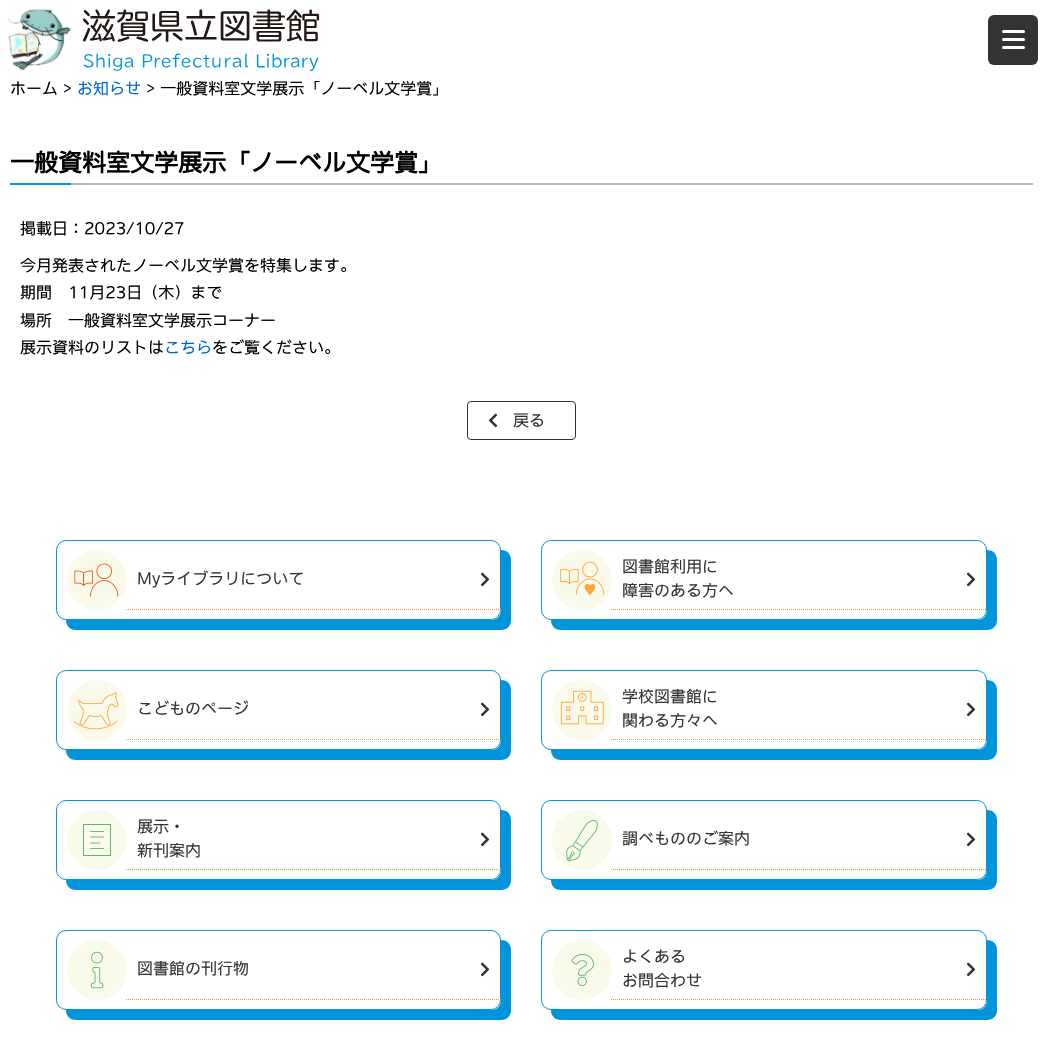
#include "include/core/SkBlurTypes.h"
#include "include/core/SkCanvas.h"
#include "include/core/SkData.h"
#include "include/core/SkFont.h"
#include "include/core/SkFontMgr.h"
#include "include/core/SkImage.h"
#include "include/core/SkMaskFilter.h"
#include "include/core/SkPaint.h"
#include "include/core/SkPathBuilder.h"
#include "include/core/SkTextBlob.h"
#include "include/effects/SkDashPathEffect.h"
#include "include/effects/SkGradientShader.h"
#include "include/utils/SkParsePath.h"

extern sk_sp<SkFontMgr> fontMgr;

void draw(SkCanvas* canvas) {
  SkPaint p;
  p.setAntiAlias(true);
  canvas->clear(SK_ColorWHITE);
  canvas->drawImageRect(SkImages::DeferredFromEncodedData(SkData::MakeFromFileName("images/1.png")), SkRect::MakeLTRB(7, 9, 71, 71), SkSamplingOptions());
  canvas->drawImageRect(SkImages::DeferredFromEncodedData(SkData::MakeFromFileName("images/2.png")), SkRect::MakeLTRB(83, 9, 320, 71), SkSamplingOptions());
  p.setColor(SkColorSetRGB(51, 51, 51));
  canvas->drawRoundRect(SkRect::MakeLTRB(988, 15, 1038, 65), 6, 6, p);
  p.setColor(SK_ColorWHITE);
  canvas->drawRoundRect(SkRect::MakeLTRB(1002, 30, 1025, 33), 1.5f, 1.5f, p);
  canvas->drawRoundRect(SkRect::MakeLTRB(1002, 38, 1025, 41), 1.5f, 1.5f, p);
  canvas->drawRoundRect(SkRect::MakeLTRB(1002, 46, 1025, 49), 1.5f, 1.5f, p);
  p.setColor(SkColorSetRGB(185, 185, 185));
  canvas->drawRect(SkRect::MakeLTRB(71, 183, 1033, 185), p);
  p.setColor(SkColorSetRGB(0, 148, 219));
  canvas->drawRect(SkRect::MakeLTRB(10, 183, 71, 185), p);
  p.setStyle(SkPaint::kStroke_Style);
  p.setStrokeWidth(1);
  p.setColor(SkColorSetRGB(51, 51, 51));
  canvas->drawRoundRect(SkRect::MakeLTRB(467.5f, 401.5f, 575.5f, 439.5f), 3.5f, 3.5f, p);
  canvas->drawImageRect(SkImages::DeferredFromEncodedData(SkData::MakeFromFileName("images/3.png")), SkRect::MakeLTRB(488, 413, 498, 428), SkSamplingOptions());
  p.setStyle(SkPaint::kFill_Style);
  p.setColor(SkColorSetRGB(0, 148, 219));
  canvas->drawPath(SkPathBuilder().moveTo(66, 620).cubicTo(66, 626, 70, 630, 76, 630).lineTo(501, 630).cubicTo(507, 630, 511, 626, 511, 620).lineTo(511, 560).cubicTo(511, 554, 507, 550, 501, 550).lineTo(501, 610).cubicTo(501, 616, 497, 620, 491, 620).close().detach(), p);
  p.setColor(SK_ColorWHITE);
  canvas->drawRoundRect(SkRect::MakeLTRB(56.5f, 540.5f, 500.5f, 619.5f), 9.5f, 9.5f, p);
  p.setStyle(SkPaint::kStroke_Style);
  p.setColor(SkColorSetRGB(0, 148, 219));
  canvas->drawRoundRect(SkRect::MakeLTRB(56.5f, 540.5f, 500.5f, 619.5f), 9.5f, 9.5f, p);
  canvas->drawImageRect(SkImages::DeferredFromEncodedData(SkData::MakeFromFileName("images/4.png")), SkRect::MakeLTRB(67, 550, 127, 610), SkSamplingOptions());
  canvas->drawImageRect(SkImages::DeferredFromEncodedData(SkData::MakeFromFileName("images/5.png")), SkRect::MakeLTRB(480, 572, 490, 587), SkSamplingOptions());
  p.setColor(SkColorSetRGB(226, 154, 59));
  p.setPathEffect(SkDashPathEffect::Make({{1, 1}}, 0));
  canvas->drawPath(SkPathBuilder().moveTo(126, 609.5f).lineTo(501, 609.5f).detach(), p);
  p.setPathEffect(nullptr);
  p.setStyle(SkPaint::kFill_Style);
  p.setColor(SkColorSetRGB(0, 148, 219));
  canvas->drawPath(SkPathBuilder().moveTo(551, 620).cubicTo(551, 626, 555, 630, 561, 630).lineTo(987, 630).cubicTo(993, 630, 997, 626, 997, 620).lineTo(997, 560).cubicTo(997, 554, 993, 550, 987, 550).lineTo(987, 610).cubicTo(987, 616, 983, 620, 977, 620).close().detach(), p);
  p.setColor(SK_ColorWHITE);
  canvas->drawRoundRect(SkRect::MakeLTRB(541.5f, 540.5f, 986.5f, 619.5f), 9.5f, 9.5f, p);
  p.setStyle(SkPaint::kStroke_Style);
  p.setColor(SkColorSetRGB(0, 148, 219));
  canvas->drawRoundRect(SkRect::MakeLTRB(541.5f, 540.5f, 986.5f, 619.5f), 9.5f, 9.5f, p);
  canvas->drawImageRect(SkImages::DeferredFromEncodedData(SkData::MakeFromFileName("images/6.png")), SkRect::MakeLTRB(552, 550, 612, 610), SkSamplingOptions());
  canvas->drawImageRect(SkImages::DeferredFromEncodedData(SkData::MakeFromFileName("images/5.png")), SkRect::MakeLTRB(966, 572, 976, 587), SkSamplingOptions());
  p.setColor(SkColorSetRGB(226, 154, 59));
  p.setPathEffect(SkDashPathEffect::Make({{1, 1}}, 0));
  canvas->drawPath(SkPathBuilder().moveTo(611, 609.5f).lineTo(987, 609.5f).detach(), p);
  p.setPathEffect(nullptr);
  p.setStyle(SkPaint::kFill_Style);
  p.setColor(SkColorSetRGB(0, 148, 219));
  canvas->drawPath(SkPathBuilder().moveTo(66, 750).cubicTo(66, 756, 70, 760, 76, 760).lineTo(501, 760).cubicTo(507, 760, 511, 756, 511, 750).lineTo(511, 690).cubicTo(511, 684, 507, 680, 501, 680).lineTo(501, 740).cubicTo(501, 746, 497, 750, 491, 750).close().detach(), p);
  p.setColor(SK_ColorWHITE);
  canvas->drawRoundRect(SkRect::MakeLTRB(56.5f, 670.5f, 500.5f, 749.5f), 9.5f, 9.5f, p);
  p.setStyle(SkPaint::kStroke_Style);
  p.setColor(SkColorSetRGB(0, 148, 219));
  canvas->drawRoundRect(SkRect::MakeLTRB(56.5f, 670.5f, 500.5f, 749.5f), 9.5f, 9.5f, p);
  canvas->drawImageRect(SkImages::DeferredFromEncodedData(SkData::MakeFromFileName("images/7.png")), SkRect::MakeLTRB(67, 680, 127, 740), SkSamplingOptions());
  canvas->drawImageRect(SkImages::DeferredFromEncodedData(SkData::MakeFromFileName("images/5.png")), SkRect::MakeLTRB(480, 702, 490, 717), SkSamplingOptions());
  p.setColor(SkColorSetRGB(226, 154, 59));
  p.setPathEffect(SkDashPathEffect::Make({{1, 1}}, 0));
  canvas->drawPath(SkPathBuilder().moveTo(126, 739.5f).lineTo(501, 739.5f).detach(), p);
  p.setPathEffect(nullptr);
  p.setStyle(SkPaint::kFill_Style);
  p.setColor(SkColorSetRGB(0, 148, 219));
  canvas->drawPath(SkPathBuilder().moveTo(551, 750).cubicTo(551, 756, 555, 760, 561, 760).lineTo(987, 760).cubicTo(993, 760, 997, 756, 997, 750).lineTo(997, 690).cubicTo(997, 684, 993, 680, 987, 680).lineTo(987, 740).cubicTo(987, 746, 983, 750, 977, 750).close().detach(), p);
  p.setColor(SK_ColorWHITE);
  canvas->drawRoundRect(SkRect::MakeLTRB(541.5f, 670.5f, 986.5f, 749.5f), 9.5f, 9.5f, p);
  p.setStyle(SkPaint::kStroke_Style);
  p.setColor(SkColorSetRGB(0, 148, 219));
  canvas->drawRoundRect(SkRect::MakeLTRB(541.5f, 670.5f, 986.5f, 749.5f), 9.5f, 9.5f, p);
  canvas->drawImageRect(SkImages::DeferredFromEncodedData(SkData::MakeFromFileName("images/8.png")), SkRect::MakeLTRB(552, 680, 612, 740), SkSamplingOptions());
  canvas->drawImageRect(SkImages::DeferredFromEncodedData(SkData::MakeFromFileName("images/5.png")), SkRect::MakeLTRB(966, 702, 976, 717), SkSamplingOptions());
  p.setColor(SkColorSetRGB(226, 154, 59));
  p.setPathEffect(SkDashPathEffect::Make({{1, 1}}, 0));
  canvas->drawPath(SkPathBuilder().moveTo(611, 739.5f).lineTo(987, 739.5f).detach(), p);
  p.setPathEffect(nullptr);
  p.setStyle(SkPaint::kFill_Style);
  p.setColor(SkColorSetRGB(0, 148, 219));
  canvas->drawPath(SkPathBuilder().moveTo(66, 880).cubicTo(66, 886, 70, 890, 76, 890).lineTo(501, 890).cubicTo(507, 890, 511, 886, 511, 880).lineTo(511, 820).cubicTo(511, 814, 507, 810, 501, 810).lineTo(501, 870).cubicTo(501, 876, 497, 880, 491, 880).close().detach(), p);
  p.setColor(SK_ColorWHITE);
  canvas->drawRoundRect(SkRect::MakeLTRB(56.5f, 800.5f, 500.5f, 879.5f), 9.5f, 9.5f, p);
  p.setStyle(SkPaint::kStroke_Style);
  p.setColor(SkColorSetRGB(0, 148, 219));
  canvas->drawRoundRect(SkRect::MakeLTRB(56.5f, 800.5f, 500.5f, 879.5f), 9.5f, 9.5f, p);
  p.setStyle(SkPaint::kFill_Style);
  p.setColor(SkColorSetRGB(250, 250, 235));
  canvas->drawCircle(97, 840, 30, p);
  p.setStyle(SkPaint::kStroke_Style);
  p.setColor(SkColorSetRGB(91, 184, 102));
  canvas->drawRect(SkRect::MakeLTRB(83.5f, 824.5f, 110.5f, 855.5f), p);
  p.setStrokeWidth(0.9f);
  p.setStrokeCap(SkPaint::kRound_Cap);
  p.setStrokeJoin(SkPaint::kRound_Join);
  canvas->drawPath(SkPathBuilder().moveTo(90.5f, 831.5f).lineTo(103.5f, 831.5f).moveTo(90.5f, 837).lineTo(103.5f, 837).moveTo(90.5f, 843).lineTo(100, 843).moveTo(90.5f, 848.5f).lineTo(103.5f, 848.5f).detach(), p);
  canvas->drawImageRect(SkImages::DeferredFromEncodedData(SkData::MakeFromFileName("images/5.png")), SkRect::MakeLTRB(480, 832, 490, 847), SkSamplingOptions());
  p.setStrokeWidth(1);
  p.setStrokeCap(SkPaint::kButt_Cap);
  p.setStrokeJoin(SkPaint::kMiter_Join);
  p.setColor(SkColorSetRGB(226, 154, 59));
  p.setPathEffect(SkDashPathEffect::Make({{1, 1}}, 0));
  canvas->drawPath(SkPathBuilder().moveTo(126, 869.5f).lineTo(501, 869.5f).detach(), p);
  p.setPathEffect(nullptr);
  p.setStyle(SkPaint::kFill_Style);
  p.setColor(SkColorSetRGB(0, 148, 219));
  canvas->drawPath(SkPathBuilder().moveTo(551, 880).cubicTo(551, 886, 555, 890, 561, 890).lineTo(987, 890).cubicTo(993, 890, 997, 886, 997, 880).lineTo(997, 820).cubicTo(997, 814, 993, 810, 987, 810).lineTo(987, 870).cubicTo(987, 876, 983, 880, 977, 880).close().detach(), p);
  p.setColor(SK_ColorWHITE);
  canvas->drawRoundRect(SkRect::MakeLTRB(541.5f, 800.5f, 986.5f, 879.5f), 9.5f, 9.5f, p);
  p.setStyle(SkPaint::kStroke_Style);
  p.setColor(SkColorSetRGB(0, 148, 219));
  canvas->drawRoundRect(SkRect::MakeLTRB(541.5f, 800.5f, 986.5f, 879.5f), 9.5f, 9.5f, p);
  canvas->drawImageRect(SkImages::DeferredFromEncodedData(SkData::MakeFromFileName("images/9.png")), SkRect::MakeLTRB(552, 810, 612, 870), SkSamplingOptions());
  canvas->drawImageRect(SkImages::DeferredFromEncodedData(SkData::MakeFromFileName("images/5.png")), SkRect::MakeLTRB(966, 832, 976, 847), SkSamplingOptions());
  p.setColor(SkColorSetRGB(226, 154, 59));
  p.setPathEffect(SkDashPathEffect::Make({{1, 1}}, 0));
  canvas->drawPath(SkPathBuilder().moveTo(611, 869.5f).lineTo(987, 869.5f).detach(), p);
  p.setPathEffect(nullptr);
  p.setStyle(SkPaint::kFill_Style);
  p.setColor(SkColorSetRGB(0, 148, 219));
  canvas->drawPath(SkPathBuilder().moveTo(66, 1010).cubicTo(66, 1016, 70, 1020, 76, 1020).lineTo(501, 1020).cubicTo(507, 1020, 511, 1016, 511, 1010).lineTo(511, 950).cubicTo(511, 944, 507, 940, 501, 940).lineTo(501, 1000).cubicTo(501, 1006, 497, 1010, 491, 1010).close().detach(), p);
  p.setColor(SK_ColorWHITE);
  canvas->drawRoundRect(SkRect::MakeLTRB(56.5f, 930.5f, 500.5f, 1009.5f), 9.5f, 9.5f, p);
  p.setStyle(SkPaint::kStroke_Style);
  p.setColor(SkColorSetRGB(0, 148, 219));
  canvas->drawRoundRect(SkRect::MakeLTRB(56.5f, 930.5f, 500.5f, 1009.5f), 9.5f, 9.5f, p);
  canvas->drawImageRect(SkImages::DeferredFromEncodedData(SkData::MakeFromFileName("images/10.png")), SkRect::MakeLTRB(67, 940, 127, 1000), SkSamplingOptions());
  canvas->drawImageRect(SkImages::DeferredFromEncodedData(SkData::MakeFromFileName("images/5.png")), SkRect::MakeLTRB(480, 962, 490, 977), SkSamplingOptions());
  p.setColor(SkColorSetRGB(226, 154, 59));
  p.setPathEffect(SkDashPathEffect::Make({{1, 1}}, 0));
  canvas->drawPath(SkPathBuilder().moveTo(126, 999.5f).lineTo(501, 999.5f).detach(), p);
  p.setPathEffect(nullptr);
  p.setStyle(SkPaint::kFill_Style);
  p.setColor(SkColorSetRGB(0, 148, 219));
  canvas->drawPath(SkPathBuilder().moveTo(551, 1010).cubicTo(551, 1016, 555, 1020, 561, 1020).lineTo(987, 1020).cubicTo(993, 1020, 997, 1016, 997, 1010).lineTo(997, 950).cubicTo(997, 944, 993, 940, 987, 940).lineTo(987, 1000).cubicTo(987, 1006, 983, 1010, 977, 1010).close().detach(), p);
  p.setColor(SK_ColorWHITE);
  canvas->drawRoundRect(SkRect::MakeLTRB(541.5f, 930.5f, 986.5f, 1009.5f), 9.5f, 9.5f, p);
  p.setStyle(SkPaint::kStroke_Style);
  p.setColor(SkColorSetRGB(0, 148, 219));
  canvas->drawRoundRect(SkRect::MakeLTRB(541.5f, 930.5f, 986.5f, 1009.5f), 9.5f, 9.5f, p);
  canvas->drawImageRect(SkImages::DeferredFromEncodedData(SkData::MakeFromFileName("images/11.png")), SkRect::MakeLTRB(552, 940, 612, 1000), SkSamplingOptions());
  canvas->drawImageRect(SkImages::DeferredFromEncodedData(SkData::MakeFromFileName("images/5.png")), SkRect::MakeLTRB(966, 962, 976, 977), SkSamplingOptions());
  p.setColor(SkColorSetRGB(226, 154, 59));
  p.setPathEffect(SkDashPathEffect::Make({{1, 1}}, 0));
  canvas->drawPath(SkPathBuilder().moveTo(611, 999.5f).lineTo(987, 999.5f).detach(), p);
  p.setPathEffect(nullptr);
  SkFont font1(fontMgr->matchFamilyStyle("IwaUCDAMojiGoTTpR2", SkFontStyle::Normal()), 16);
  font1.setSubpixel(true);
  p.setStyle(SkPaint::kFill_Style);
  p.setColor(SK_ColorBLACK);
  canvas->drawString("ホーム >", 10, 94, font1, p);
  p.setColor(SkColorSetRGB(0, 102, 204));
  canvas->drawString("お知らせ", 77, 94, font1, p);
  p.setColor(SK_ColorBLACK);
  canvas->drawString("> 一般資料室文学展示「ノーベル文学賞」", 146, 94, font1, p);
  SkFont font2(fontMgr->matchFamilyStyle("IwaUCDAMojiGoTTpR2", SkFontStyle::Bold()), 24);
  font2.setSubpixel(true);
  canvas->drawString("一般資料室文学展示「ノーベル文学賞」", 10, 171, font2, p);
  canvas->drawString("掲載日：2023/10/27", 20, 234, font1, p);
  canvas->drawString("今月発表されたノーベル文学賞を特集します。", 20, 271, font1, p);
  canvas->drawString("期間　11月23日（木）まで", 20, 298, font1, p);
  canvas->drawString("場所　一般資料室文学展示コーナー", 20, 326, font1, p);
  canvas->drawString("展示資料のリストは", 20, 353, font1, p);
  p.setColor(SkColorSetRGB(0, 102, 204));
  canvas->drawString("こちら", 164, 353, font1, p);
  p.setColor(SK_ColorBLACK);
  canvas->drawString("をご覧ください。", 212, 353, font1, p);
  p.setColor(SkColorSetRGB(51, 51, 51));
  canvas->drawString("戻る", 513, 426, font1, p);
  canvas->drawString("Myライブラリについて", 137, 584, font1, p);
  canvas->drawString("図書館利用に", 622, 572, font1, p);
  canvas->drawString("障害のある方へ", 622, 596, font1, p);
  canvas->drawString("こどものページ", 137, 714, font1, p);
  canvas->drawString("学校図書館に", 622, 702, font1, p);
  canvas->drawString("関わる方々へ", 622, 726, font1, p);
  canvas->drawString("展示・", 137, 832, font1, p);
  canvas->drawString("新刊案内", 137, 856, font1, p);
  canvas->drawString("調べもののご案内", 622, 844, font1, p);
  canvas->drawString("図書館の刊行物", 137, 974, font1, p);
  canvas->drawString("よくある", 622, 962, font1, p);
  canvas->drawString("お問合わせ", 622, 986, font1, p);
}
